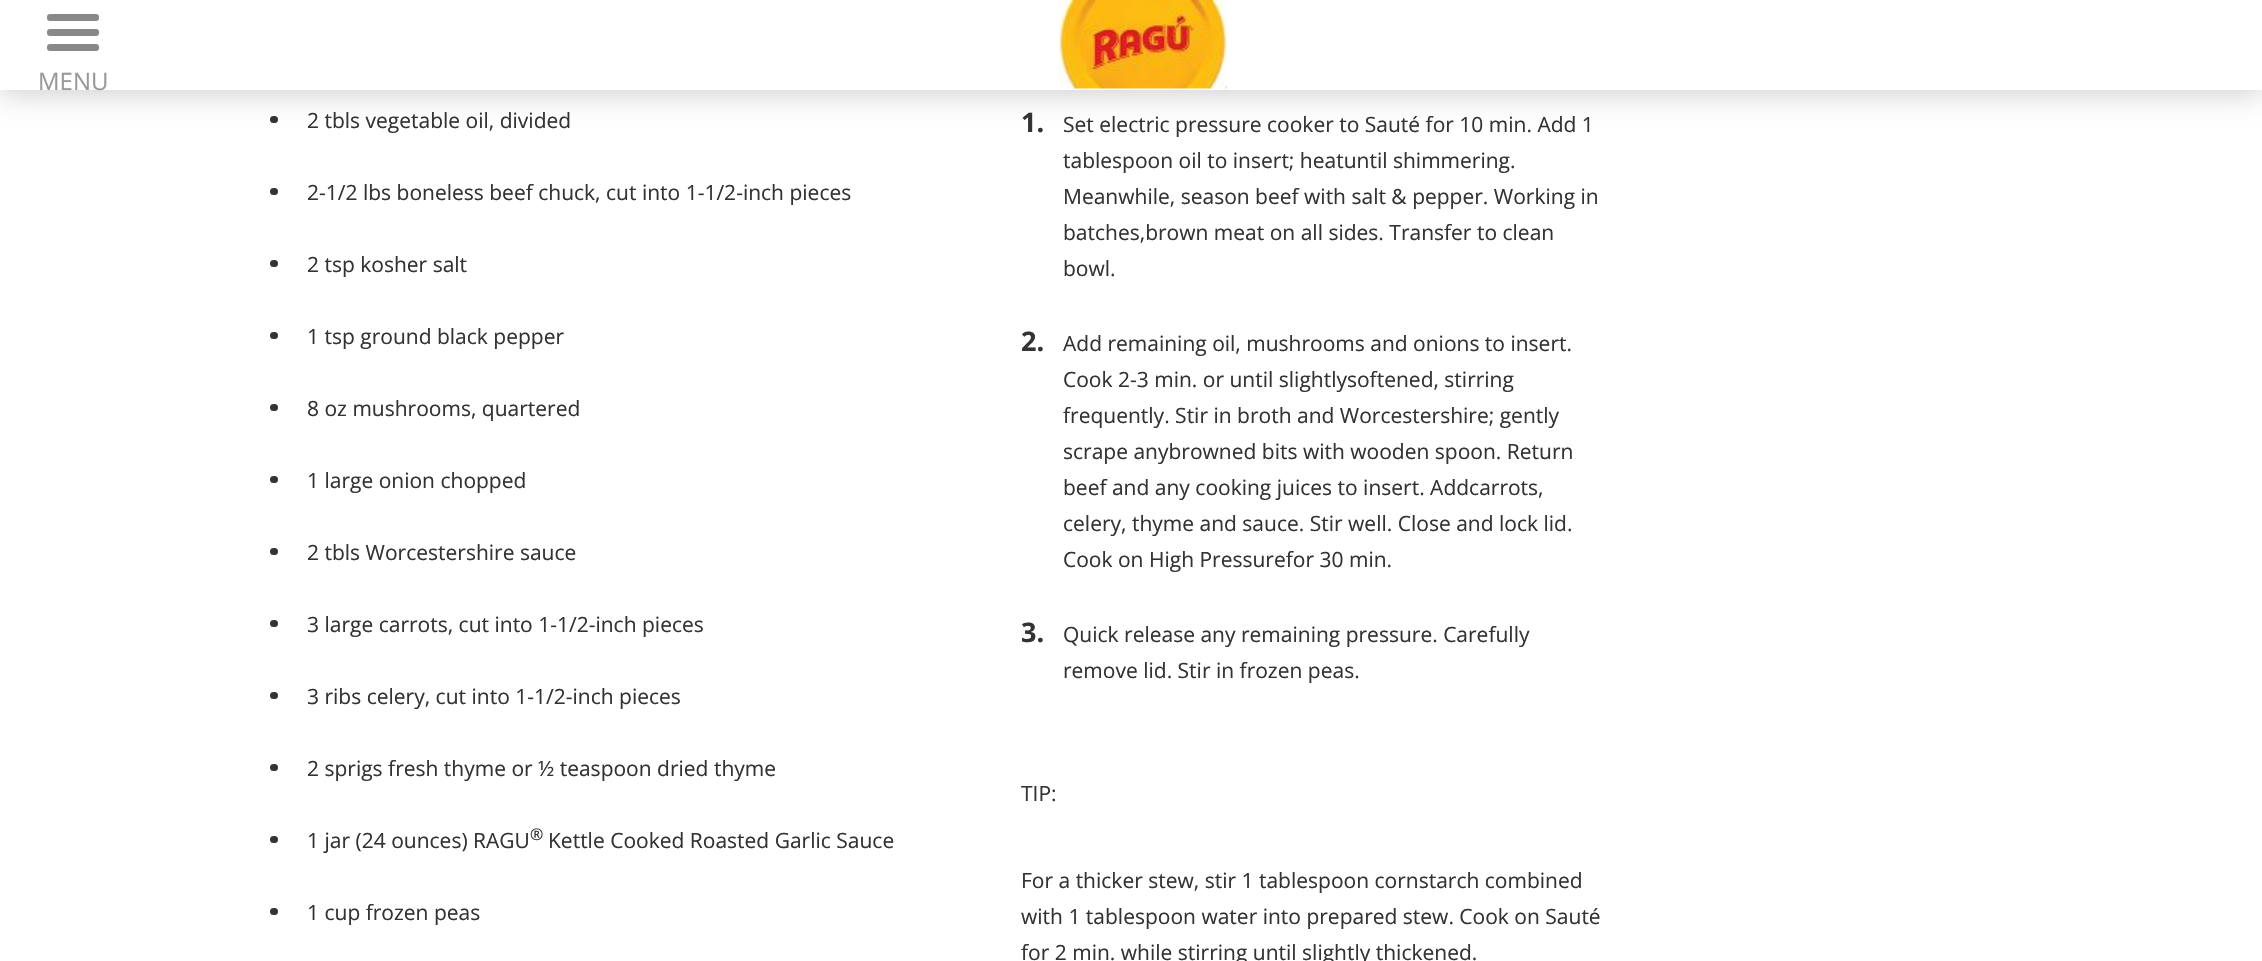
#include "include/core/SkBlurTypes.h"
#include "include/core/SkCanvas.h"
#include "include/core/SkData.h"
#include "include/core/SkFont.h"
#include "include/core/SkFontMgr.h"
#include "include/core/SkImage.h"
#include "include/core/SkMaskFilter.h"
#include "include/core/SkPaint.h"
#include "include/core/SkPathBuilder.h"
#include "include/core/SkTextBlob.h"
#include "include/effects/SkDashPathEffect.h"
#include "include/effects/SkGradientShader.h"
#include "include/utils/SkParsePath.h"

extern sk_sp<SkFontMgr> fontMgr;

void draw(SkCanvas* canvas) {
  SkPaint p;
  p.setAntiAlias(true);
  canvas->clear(SK_ColorWHITE);
  p.setColor(SkColorSetRGB(51, 51, 51));
  canvas->drawRoundRect(SkRect::MakeLTRB(270, 116, 278, 123), 3.5f, 3.5f, p);
  p.setColor(SkColorSetARGB(51, 0, 0, 0));
  p.setMaskFilter(SkMaskFilter::MakeBlur(kNormal_SkBlurStyle, 15));
  canvas->drawRect(SkRect::MakeLTRB(0, 3, 2262, 93), p);
  p.setMaskFilter(nullptr);
  p.setColor(SK_ColorWHITE);
  canvas->drawRect(SkRect::MakeLTRB(0, 0, 2262, 90), p);
  p.setColor(SkColorSetRGB(136, 136, 136));
  canvas->drawRoundRect(SkRect::MakeLTRB(47, 14, 99, 21), 3, 3, p);
  canvas->drawRoundRect(SkRect::MakeLTRB(47, 29, 99, 36), 3, 3, p);
  canvas->drawRoundRect(SkRect::MakeLTRB(47, 44, 99, 51), 3, 3, p);
  canvas->drawImageRect(SkImages::DeferredFromEncodedData(SkData::MakeFromFileName("images/1.png")), SkRect::MakeLTRB(1058, 0, 1227, 89), SkSamplingOptions());
  p.setColor(SkColorSetRGB(51, 51, 51));
  canvas->drawRoundRect(SkRect::MakeLTRB(270, 188, 278, 195), 3.5f, 3.5f, p);
  canvas->drawRoundRect(SkRect::MakeLTRB(270, 260, 278, 267), 3.5f, 3.5f, p);
  canvas->drawRoundRect(SkRect::MakeLTRB(270, 332, 278, 339), 3.5f, 3.5f, p);
  canvas->drawRoundRect(SkRect::MakeLTRB(270, 404, 278, 411), 3.5f, 3.5f, p);
  canvas->drawRoundRect(SkRect::MakeLTRB(270, 476, 278, 483), 3.5f, 3.5f, p);
  canvas->drawRoundRect(SkRect::MakeLTRB(270, 548, 278, 555), 3.5f, 3.5f, p);
  canvas->drawRoundRect(SkRect::MakeLTRB(270, 620, 278, 627), 3.5f, 3.5f, p);
  canvas->drawRoundRect(SkRect::MakeLTRB(270, 692, 278, 699), 3.5f, 3.5f, p);
  canvas->drawRoundRect(SkRect::MakeLTRB(270, 764, 278, 771), 3.5f, 3.5f, p);
  canvas->drawRoundRect(SkRect::MakeLTRB(270, 836, 278, 843), 3.5f, 3.5f, p);
  canvas->drawRoundRect(SkRect::MakeLTRB(270, 908, 278, 915), 3.5f, 3.5f, p);
  SkFont font1(fontMgr->matchFamilyStyle("Open Sans", SkFontStyle::Normal()), 24);
  font1.setSubpixel(true);
  p.setColor(SkColorSetRGB(152, 152, 152));
  canvas->drawString("MENU", 38, 90, font1, p);
  SkFont font2(fontMgr->matchFamilyStyle("Open Sans", SkFontStyle::Normal()), 21);
  font2.setSubpixel(true);
  p.setColor(SkColorSetRGB(51, 51, 51));
  canvas->drawString("2 tbls vegetable oil, divided", 307, 128, font2, p);
  canvas->drawString("2-1/2 lbs boneless beef chuck, cut into 1-1/2-inch pieces", 307, 200, font2, p);
  canvas->drawString("2 tsp kosher salt", 307, 272, font2, p);
  canvas->drawString("1 tsp ground black pepper", 307, 344, font2, p);
  canvas->drawString("8 oz mushrooms, quartered", 307, 416, font2, p);
  canvas->drawString("1 large onion chopped", 307, 488, font2, p);
  canvas->drawString("2 tbls Worcestershire sauce", 307, 560, font2, p);
  canvas->drawString("3 large carrots, cut into 1-1/2-inch pieces", 307, 632, font2, p);
  canvas->drawString("3 ribs celery, cut into 1-1/2-inch pieces", 307, 704, font2, p);
  canvas->drawString("2 sprigs fresh thyme or ½ teaspoon dried thyme", 307, 776, font2, p);
  canvas->drawString("1 jar (24 ounces) RAGU", 307, 848, font2, p);
  SkFont font3(fontMgr->matchFamilyStyle("Open Sans", SkFontStyle::Normal()), 16);
  font3.setSubpixel(true);
  canvas->drawString("®", 530, 840, font3, p);
  canvas->drawString("Kettle Cooked Roasted Garlic Sauce", 548, 848, font2, p);
  canvas->drawString("1 cup frozen peas", 307, 920, font2, p);
  SkFont font4(fontMgr->matchFamilyStyle("Open Sans", SkFontStyle::Bold()), 27);
  font4.setSubpixel(true);
  canvas->drawString("1.", 1021, 132, font4, p);
  canvas->drawString("Set electric pressure cooker to Sauté for 10 min. Add 1", 1063, 132, font2, p);
  canvas->drawString("tablespoon oil to insert; heatuntil shimmering.", 1063, 168, font2, p);
  canvas->drawString("Meanwhile, season beef with salt & pepper. Working in", 1063, 204, font2, p);
  canvas->drawString("batches,brown meat on all sides. Transfer to clean", 1063, 240, font2, p);
  canvas->drawString("bowl.", 1063, 276, font2, p);
  canvas->drawString("2.", 1021, 351, font4, p);
  canvas->drawString("Add remaining oil, mushrooms and onions to insert.", 1063, 351, font2, p);
  canvas->drawString("Cook 2-3 min. or until slightlysoftened, stirring", 1063, 387, font2, p);
  canvas->drawString("frequently. Stir in broth and Worcestershire; gently", 1063, 423, font2, p);
  canvas->drawString("scrape anybrowned bits with wooden spoon. Return", 1063, 459, font2, p);
  canvas->drawString("beef and any cooking juices to insert. Addcarrots,", 1063, 495, font2, p);
  canvas->drawString("celery, thyme and sauce. Stir well. Close and lock lid.", 1063, 531, font2, p);
  canvas->drawString("Cook on High Pressurefor 30 min.", 1063, 567, font2, p);
  canvas->drawString("3.", 1021, 642, font4, p);
  canvas->drawString("Quick release any remaining pressure. Carefully", 1063, 642, font2, p);
  canvas->drawString("remove lid. Stir in frozen peas.", 1063, 678, font2, p);
  canvas->drawString("TIP:", 1021, 801, font2, p);
  canvas->drawString("For a thicker stew, stir 1 tablespoon cornstarch combined", 1021, 888, font2, p);
  canvas->drawString("with 1 tablespoon water into prepared stew. Cook on Sauté", 1021, 924, font2, p);
  canvas->drawString("for 2 min. while stirring until slightly thickened.", 1021, 960, font2, p);
}
